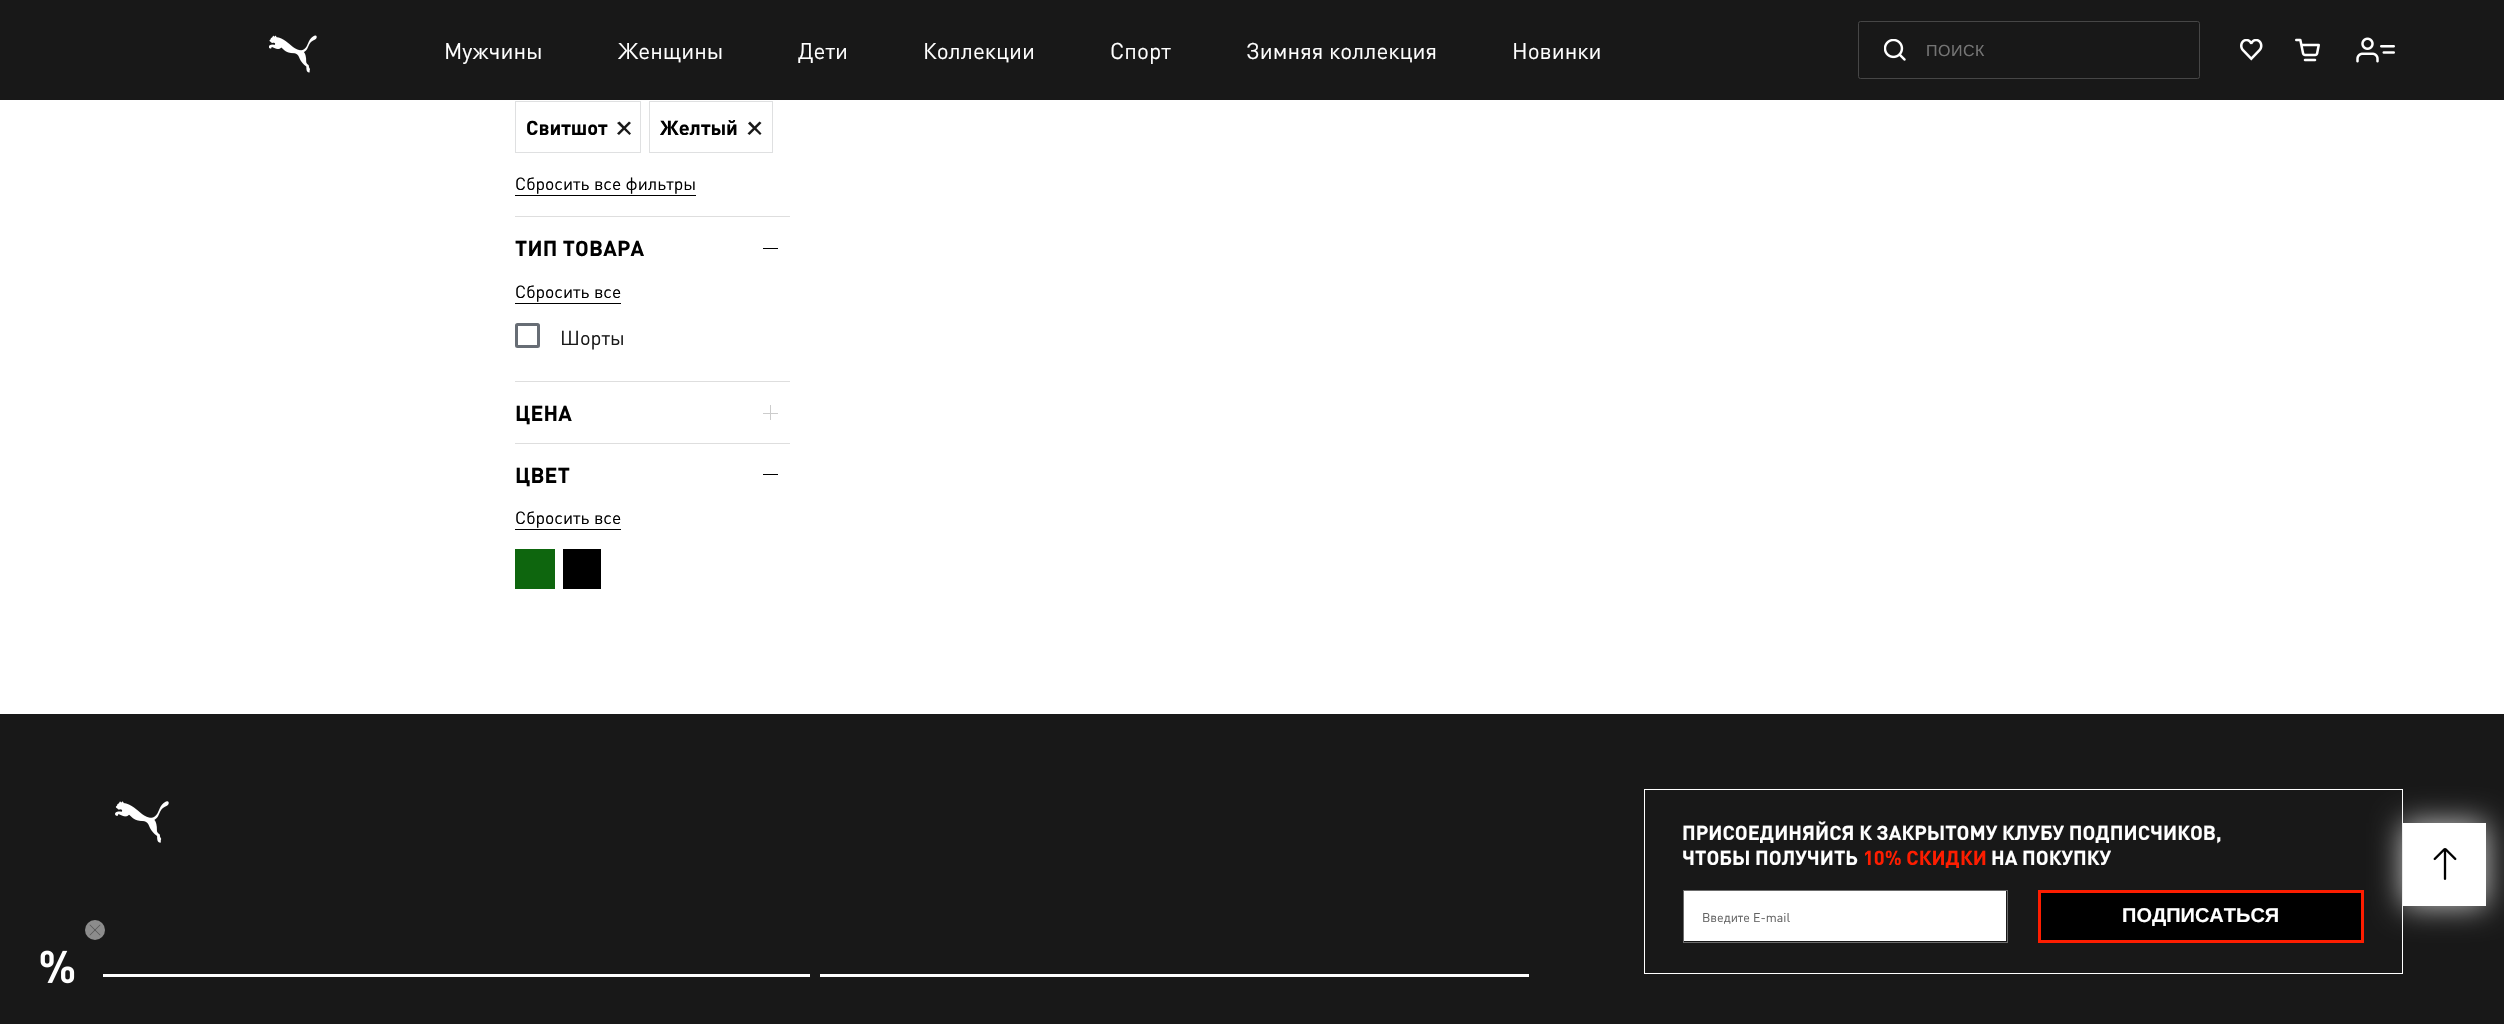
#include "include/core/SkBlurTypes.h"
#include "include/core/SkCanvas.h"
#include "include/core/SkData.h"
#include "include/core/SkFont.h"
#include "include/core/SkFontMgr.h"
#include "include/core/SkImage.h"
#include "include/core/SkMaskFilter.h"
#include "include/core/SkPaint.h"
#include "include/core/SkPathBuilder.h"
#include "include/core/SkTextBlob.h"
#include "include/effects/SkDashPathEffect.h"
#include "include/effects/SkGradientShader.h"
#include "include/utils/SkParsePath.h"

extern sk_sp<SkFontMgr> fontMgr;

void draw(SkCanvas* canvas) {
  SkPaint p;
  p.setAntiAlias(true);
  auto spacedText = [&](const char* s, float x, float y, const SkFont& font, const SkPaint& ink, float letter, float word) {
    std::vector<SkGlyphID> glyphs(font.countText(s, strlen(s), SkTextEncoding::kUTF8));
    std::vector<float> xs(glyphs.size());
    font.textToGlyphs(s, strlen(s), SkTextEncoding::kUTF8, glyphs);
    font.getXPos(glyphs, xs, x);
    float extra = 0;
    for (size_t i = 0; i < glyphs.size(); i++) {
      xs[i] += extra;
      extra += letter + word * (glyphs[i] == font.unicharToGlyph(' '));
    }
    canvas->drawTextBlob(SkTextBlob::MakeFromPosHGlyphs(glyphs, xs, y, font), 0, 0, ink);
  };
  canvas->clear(SK_ColorWHITE);
  p.setColor(SkColorSetRGB(24, 24, 24));
  canvas->drawRect(SkRect::MakeLTRB(0, 0, 2504, 100), p);
  canvas->drawImageRect(SkImages::DeferredFromEncodedData(SkData::MakeFromFileName("images/1.png")), SkRect::MakeLTRB(269, 35, 317, 73), SkSamplingOptions());
  p.setStyle(SkPaint::kStroke_Style);
  p.setStrokeWidth(1);
  p.setColor(SkColorSetRGB(70, 70, 70));
  canvas->drawRoundRect(SkRect::MakeLTRB(1858.5f, 21.5f, 2199.5f, 78.5f), 2, 2, p);
  canvas->drawImageRect(SkImages::DeferredFromEncodedData(SkData::MakeFromFileName("images/2.png")), SkRect::MakeLTRB(1884, 39, 1906, 61), SkSamplingOptions());
  canvas->drawImageRect(SkImages::DeferredFromEncodedData(SkData::MakeFromFileName("images/3.png")), SkRect::MakeLTRB(2240, 39, 2263, 61), SkSamplingOptions());
  canvas->drawImageRect(SkImages::DeferredFromEncodedData(SkData::MakeFromFileName("images/4.png")), SkRect::MakeLTRB(2295, 38, 2320, 62), SkSamplingOptions());
  canvas->drawImageRect(SkImages::DeferredFromEncodedData(SkData::MakeFromFileName("images/5.png")), SkRect::MakeLTRB(2356, 37, 2395, 63), SkSamplingOptions());
  p.setColor(SkColorSetRGB(223, 224, 225));
  canvas->drawRect(SkRect::MakeLTRB(515.5f, 101.5f, 640.5f, 152.5f), p);
  p.setStyle(SkPaint::kFill_Style);
  p.setColor(SkColorSetRGB(25, 25, 25));
  canvas->drawPath(SkPathBuilder().moveTo(617, 133.5f).lineTo(629, 121.5f).lineTo(631, 123).lineTo(619, 135).close().detach(), p);
  canvas->drawPath(SkPathBuilder().moveTo(619.5f, 121.5f).lineTo(631, 133.5f).lineTo(629.5f, 135).lineTo(617, 123).close().detach(), p);
  p.setStyle(SkPaint::kStroke_Style);
  p.setColor(SkColorSetRGB(223, 224, 225));
  canvas->drawRect(SkRect::MakeLTRB(649.5f, 101.5f, 772.5f, 152.5f), p);
  p.setStyle(SkPaint::kFill_Style);
  p.setColor(SkColorSetRGB(25, 25, 25));
  canvas->drawPath(SkPathBuilder().moveTo(747.5f, 133.5f).lineTo(759.5f, 121.5f).lineTo(761.5f, 123).lineTo(749.5f, 135).close().detach(), p);
  canvas->drawPath(SkPathBuilder().moveTo(750, 121.5f).lineTo(761.5f, 133.5f).lineTo(760, 135).lineTo(748, 123.5f).close().detach(), p);
  p.setColor(SK_ColorBLACK);
  canvas->drawRect(SkRect::MakeLTRB(515, 195, 696, 196), p);
  p.setColor(SkColorSetRGB(222, 222, 222));
  canvas->drawRect(SkRect::MakeLTRB(515, 216, 790, 217), p);
  p.setColor(SK_ColorBLACK);
  canvas->drawRect(SkRect::MakeLTRB(763, 248, 778, 249), p);
  canvas->drawRect(SkRect::MakeLTRB(515, 303, 621, 304), p);
  p.setStyle(SkPaint::kStroke_Style);
  p.setStrokeWidth(3);
  p.setColor(SkColorSetRGB(103, 109, 117));
  canvas->drawRoundRect(SkRect::MakeLTRB(516.5f, 324.5f, 538.5f, 346.5f), 1, 1, p);
  p.setStyle(SkPaint::kFill_Style);
  p.setColor(SkColorSetRGB(222, 222, 222));
  canvas->drawRect(SkRect::MakeLTRB(515, 381, 790, 382), p);
  p.setColor(SkColorSetRGB(204, 204, 204));
  canvas->drawRect(SkRect::MakeLTRB(763, 413, 778, 414), p);
  canvas->drawRect(SkRect::MakeLTRB(770, 405, 771, 420), p);
  p.setColor(SkColorSetRGB(222, 222, 222));
  canvas->drawRect(SkRect::MakeLTRB(515, 443, 790, 444), p);
  p.setColor(SK_ColorBLACK);
  canvas->drawRect(SkRect::MakeLTRB(763, 474, 778, 475), p);
  canvas->drawRect(SkRect::MakeLTRB(515, 529, 621, 530), p);
  p.setColor(SkColorSetRGB(14, 102, 14));
  canvas->drawRect(SkRect::MakeLTRB(515, 549, 555, 589), p);
  p.setColor(SK_ColorBLACK);
  canvas->drawRect(SkRect::MakeLTRB(563, 549, 601, 589), p);
  p.setColor(SkColorSetRGB(24, 24, 24));
  canvas->drawRect(SkRect::MakeLTRB(0, 714, 2504, 1024), p);
  p.setStyle(SkPaint::kStroke_Style);
  p.setStrokeWidth(1);
  p.setColor(SK_ColorWHITE);
  canvas->drawRect(SkRect::MakeLTRB(1644.5f, 789.5f, 2402.5f, 973.5f), p);
  p.setStyle(SkPaint::kFill_Style);
  p.setColor(SK_ColorBLACK);
  canvas->drawRect(SkRect::MakeLTRB(2039.5f, 891.5f, 2362.5f, 941.5f), p);
  p.setStyle(SkPaint::kStroke_Style);
  p.setStrokeWidth(3);
  p.setColor(SkColorSetRGB(254, 29, 0));
  canvas->drawRect(SkRect::MakeLTRB(2039.5f, 891.5f, 2362.5f, 941.5f), p);
  p.setStyle(SkPaint::kFill_Style);
  p.setColor(SkColorSetRGB(204, 204, 204));
  p.setMaskFilter(SkMaskFilter::MakeBlur(kNormal_SkBlurStyle, 15.5f));
  canvas->drawRect(SkRect::MakeLTRB(2403, 823, 2486, 906), p);
  p.setMaskFilter(nullptr);
  p.setColor(SK_ColorWHITE);
  canvas->drawRect(SkRect::MakeLTRB(2403, 823, 2486, 906), p);
  canvas->drawImageRect(SkImages::DeferredFromEncodedData(SkData::MakeFromFileName("images/6.png")), SkRect::MakeLTRB(2433, 848, 2457, 880), SkSamplingOptions());
  canvas->drawImageRect(SkImages::DeferredFromEncodedData(SkData::MakeFromFileName("images/7.png")), SkRect::MakeLTRB(115, 801, 169, 843), SkSamplingOptions());
  canvas->drawRect(SkRect::MakeLTRB(1684, 891, 2006, 941), p);
  p.setStyle(SkPaint::kStroke_Style);
  p.setStrokeWidth(1);
  p.setColor(SkColorSetRGB(108, 108, 108));
  canvas->drawRect(SkRect::MakeLTRB(1683.5f, 890.5f, 2007.5f, 942.5f), p);
  p.setStyle(SkPaint::kFill_Style);
  p.setColor(SkColorSetRGB(140, 140, 140));
  canvas->drawCircle(95, 930, 10, p);
  p.setColor(SkColorSetRGB(84, 84, 84));
  canvas->drawPath(SkPathBuilder().moveTo(89.5f, 935).lineTo(100, 924.5f).lineTo(100.5f, 925).lineTo(90, 935.5f).close().detach(), p);
  p.setColor(SkColorSetARGB(102, 0, 0, 0));
  canvas->drawPath(SkPathBuilder().moveTo(90, 924.5f).lineTo(100.5f, 935).lineTo(100, 935.5f).lineTo(89.5f, 925).close().detach(), p);
  canvas->drawImageRect(SkImages::DeferredFromEncodedData(SkData::MakeFromFileName("images/8.png")), SkRect::MakeLTRB(40, 950, 75, 984), SkSamplingOptions());
  p.setColor(SK_ColorWHITE);
  canvas->drawRect(SkRect::MakeLTRB(103, 974, 810, 977), p);
  canvas->drawRect(SkRect::MakeLTRB(820, 974, 1529, 977), p);
  SkFont font1(fontMgr->matchFamilyStyle("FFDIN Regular", SkFontStyle::Normal()), 22.5f);
  font1.setSubpixel(true);
  canvas->drawString("Мужчины", 444, 59, font1, p);
  canvas->drawString("Женщины", 618, 59, font1, p);
  canvas->drawString("Дети", 798, 59, font1, p);
  canvas->drawString("Коллекции", 923, 59, font1, p);
  canvas->drawString("Спорт", 1110, 59, font1, p);
  canvas->drawString("Зимняя коллекция", 1246, 59, font1, p);
  canvas->drawString("Новинки", 1512, 59, font1, p);
  SkFont font2(fontMgr->matchFamilyStyle("Liberation Sans", SkFontStyle::Normal()), 16);
  font2.setSubpixel(true);
  p.setColor(SkColorSetRGB(116, 116, 116));
  spacedText("ПОИСК", 1926, 56, font2, p, 0.5f, 0);
  SkFont font3(fontMgr->matchFamilyStyle("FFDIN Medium", SkFontStyle::Bold()), 20);
  font3.setSubpixel(true);
  p.setColor(SK_ColorBLACK);
  canvas->drawString("Свитшот", 526, 135, font3, p);
  canvas->drawString("Желтый", 660, 135, font3, p);
  SkFont font4(fontMgr->matchFamilyStyle("FFDIN Regular", SkFontStyle::Normal()), 17.5f);
  font4.setSubpixel(true);
  canvas->drawString("Сбросить все фильтры", 515, 190, font4, p);
  SkFont font5(fontMgr->matchFamilyStyle("FFDIN Medium", SkFontStyle::Bold()), 21.25f);
  font5.setSubpixel(true);
  spacedText("ТИП ТОВАРА", 515, 256, font5, p, 0.25f, 0);
  canvas->drawString("Сбросить все", 515, 298, font4, p);
  SkFont font6(fontMgr->matchFamilyStyle("FFDIN Regular", SkFontStyle::Normal()), 20);
  font6.setSubpixel(true);
  p.setColor(SkColorSetRGB(25, 25, 25));
  canvas->drawString("Шорты", 560, 345, font6, p);
  p.setColor(SK_ColorBLACK);
  spacedText("ЦЕНА", 515, 421, font5, p, 0.25f, 0);
  spacedText("ЦВЕТ", 515, 483, font5, p, 0.25f, 0);
  canvas->drawString("Сбросить все", 515, 524, font4, p);
  p.setColor(SK_ColorWHITE);
  canvas->drawString("ПРИСОЕДИНЯЙСЯ К ЗАКРЫТОМУ КЛУБУ ПОДПИСЧИКОВ,", 1682, 840, font3, p);
  canvas->drawString("ЧТОБЫ ПОЛУЧИТЬ", 1682, 865, font3, p);
  p.setColor(SkColorSetRGB(254, 29, 0));
  canvas->drawString("10% СКИДКИ", 1863, 865, font3, p);
  p.setColor(SK_ColorWHITE);
  canvas->drawString("НА ПОКУПКУ", 1991, 865, font3, p);
  SkFont font7(fontMgr->matchFamilyStyle("FFDIN Regular", SkFontStyle::Normal()), 12.5f);
  font7.setSubpixel(true);
  p.setColor(SkColorSetRGB(98, 98, 98));
  canvas->drawString("Введите E-mail", 1702, 922, font7, p);
  SkFont font8(fontMgr->matchFamilyStyle("Liberation Sans", SkFontStyle::Bold()), 20);
  font8.setSubpixel(true);
  p.setColor(SK_ColorWHITE);
  canvas->drawString("ПОДПИСАТЬСЯ", 2122, 922, font8, p);
}
